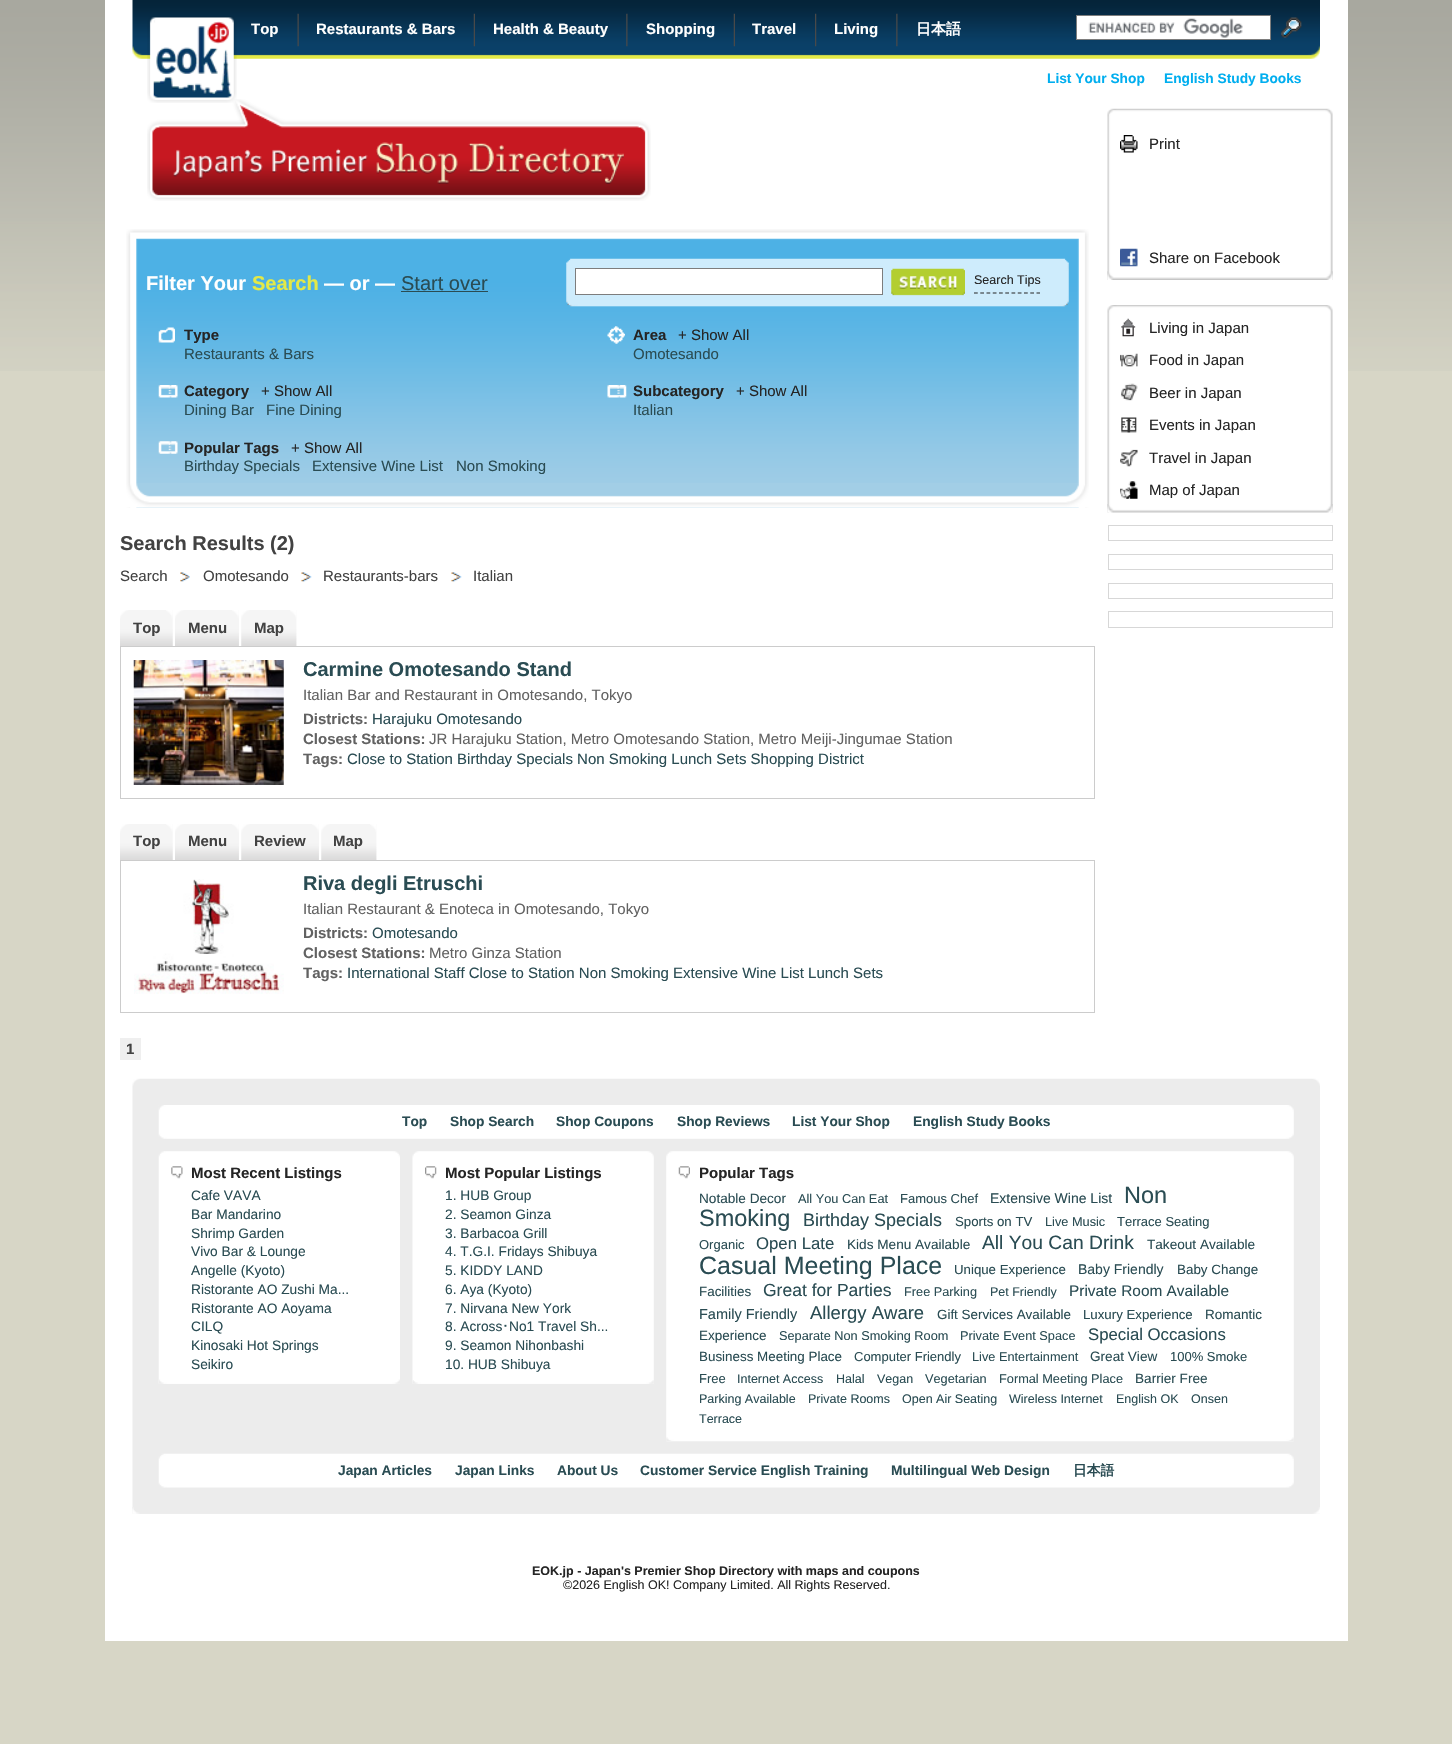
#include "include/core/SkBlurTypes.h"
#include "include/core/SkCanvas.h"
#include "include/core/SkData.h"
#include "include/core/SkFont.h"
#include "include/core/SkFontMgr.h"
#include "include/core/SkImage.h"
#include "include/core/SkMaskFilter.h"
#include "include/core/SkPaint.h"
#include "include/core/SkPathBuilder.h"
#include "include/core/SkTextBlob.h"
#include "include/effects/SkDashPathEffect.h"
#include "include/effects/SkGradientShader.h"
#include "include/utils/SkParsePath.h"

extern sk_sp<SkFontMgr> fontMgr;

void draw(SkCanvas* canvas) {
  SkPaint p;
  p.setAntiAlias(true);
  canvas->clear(SkColorSetRGB(215, 214, 198));
  canvas->drawImageRect(SkImages::DeferredFromEncodedData(SkData::MakeFromFileName("images/1.png")), SkRect::MakeLTRB(0, 0, 1452, 371), SkSamplingOptions());
  p.setColor(SK_ColorWHITE);
  canvas->drawRect(SkRect::MakeLTRB(105, 0, 1348, 1641), p);
  canvas->drawImageRect(SkImages::DeferredFromEncodedData(SkData::MakeFromFileName("images/3.png")), SkRect::MakeLTRB(132, 0, 1320, 59), SkSamplingOptions());
  canvas->drawImageRect(SkImages::DeferredFromEncodedData(SkData::MakeFromFileName("images/2.png")), SkRect::MakeLTRB(147, 16, 237, 103), SkSamplingOptions());
  canvas->drawImageRect(SkImages::DeferredFromEncodedData(SkData::MakeFromFileName("images/4.png")), SkRect::MakeLTRB(297, 13, 299, 47), SkSamplingOptions());
  canvas->drawImageRect(SkImages::DeferredFromEncodedData(SkData::MakeFromFileName("images/5.png")), SkRect::MakeLTRB(473, 13, 475, 47), SkSamplingOptions());
  canvas->drawImageRect(SkImages::DeferredFromEncodedData(SkData::MakeFromFileName("images/6.png")), SkRect::MakeLTRB(626, 13, 628, 47), SkSamplingOptions());
  canvas->drawImageRect(SkImages::DeferredFromEncodedData(SkData::MakeFromFileName("images/5.png")), SkRect::MakeLTRB(733, 13, 735, 47), SkSamplingOptions());
  canvas->drawImageRect(SkImages::DeferredFromEncodedData(SkData::MakeFromFileName("images/7.png")), SkRect::MakeLTRB(815, 13, 817, 47), SkSamplingOptions());
  canvas->drawImageRect(SkImages::DeferredFromEncodedData(SkData::MakeFromFileName("images/6.png")), SkRect::MakeLTRB(896, 13, 898, 47), SkSamplingOptions());
  canvas->drawRect(SkRect::MakeLTRB(1077, 16, 1270, 39), p);
  canvas->drawImageRect(SkImages::DeferredFromEncodedData(SkData::MakeFromFileName("images/8.png")), SkRect::MakeLTRB(1088, 18, 1243, 38), SkSamplingOptions());
  p.setStyle(SkPaint::kStroke_Style);
  p.setStrokeWidth(1);
  p.setColor(SkColorSetRGB(125, 125, 125));
  canvas->drawRect(SkRect::MakeLTRB(1076.5f, 15.5f, 1270.5f, 39.5f), p);
  canvas->drawImageRect(SkImages::DeferredFromEncodedData(SkData::MakeFromFileName("images/9.png")), SkRect::MakeLTRB(1281, 17, 1302, 38), SkSamplingOptions());
  canvas->drawImageRect(SkImages::DeferredFromEncodedData(SkData::MakeFromFileName("images/10.png")), SkRect::MakeLTRB(147, 99, 651, 201), SkSamplingOptions());
  canvas->drawImageRect(SkImages::DeferredFromEncodedData(SkData::MakeFromFileName("images/11.png")), SkRect::MakeLTRB(126, 229, 1089, 508), SkSamplingOptions());
  canvas->drawImageRect(SkImages::DeferredFromEncodedData(SkData::MakeFromFileName("images/12.png")), SkRect::MakeLTRB(126, 483, 1089, 508), SkSamplingOptions());
  p.setStyle(SkPaint::kFill_Style);
  p.setColor(SkColorSetRGB(42, 76, 83));
  canvas->drawRect(SkRect::MakeLTRB(401, 291, 488, 292), p);
  canvas->drawImageRect(SkImages::DeferredFromEncodedData(SkData::MakeFromFileName("images/13.png")), SkRect::MakeLTRB(566, 258, 1069, 307), SkSamplingOptions());
  p.setColor(SK_ColorWHITE);
  canvas->drawRect(SkRect::MakeLTRB(575.5f, 268.5f, 882.5f, 294.5f), p);
  p.setStyle(SkPaint::kStroke_Style);
  p.setColor(SkColorSetRGB(125, 125, 125));
  canvas->drawRect(SkRect::MakeLTRB(575.5f, 268.5f, 882.5f, 294.5f), p);
  canvas->drawImageRect(SkImages::DeferredFromEncodedData(SkData::MakeFromFileName("images/14.png")), SkRect::MakeLTRB(891, 268, 965, 296), SkSamplingOptions());
  p.setStrokeWidth(1.2f);
  p.setColor(SkColorSetRGB(37, 37, 37));
  p.setPathEffect(SkDashPathEffect::Make({{3.75f, 2.5f}}, 0));
  canvas->drawPath(SkPathBuilder().moveTo(974, 293).lineTo(1040, 293).detach(), p);
  p.setPathEffect(nullptr);
  canvas->drawImageRect(SkImages::DeferredFromEncodedData(SkData::MakeFromFileName("images/15.png")), SkRect::MakeLTRB(158, 327, 175, 343), SkSamplingOptions());
  canvas->drawImageRect(SkImages::DeferredFromEncodedData(SkData::MakeFromFileName("images/16.png")), SkRect::MakeLTRB(607, 326, 625, 344), SkSamplingOptions());
  canvas->drawImageRect(SkImages::DeferredFromEncodedData(SkData::MakeFromFileName("images/17.png")), SkRect::MakeLTRB(158, 385, 178, 398), SkSamplingOptions());
  canvas->drawImageRect(SkImages::DeferredFromEncodedData(SkData::MakeFromFileName("images/18.png")), SkRect::MakeLTRB(607, 385, 627, 398), SkSamplingOptions());
  canvas->drawImageRect(SkImages::DeferredFromEncodedData(SkData::MakeFromFileName("images/19.png")), SkRect::MakeLTRB(158, 441, 178, 454), SkSamplingOptions());
  canvas->drawImageRect(SkImages::DeferredFromEncodedData(SkData::MakeFromFileName("images/20.png")), SkRect::MakeLTRB(180, 572, 190, 582), SkSamplingOptions());
  canvas->drawImageRect(SkImages::DeferredFromEncodedData(SkData::MakeFromFileName("images/21.png")), SkRect::MakeLTRB(301, 572, 312, 582), SkSamplingOptions());
  canvas->drawImageRect(SkImages::DeferredFromEncodedData(SkData::MakeFromFileName("images/21.png")), SkRect::MakeLTRB(451, 572, 462, 582), SkSamplingOptions());
  canvas->drawImageRect(SkImages::DeferredFromEncodedData(SkData::MakeFromFileName("images/22.png")), SkRect::MakeLTRB(120, 610, 173, 646), SkSamplingOptions());
  canvas->drawImageRect(SkImages::DeferredFromEncodedData(SkData::MakeFromFileName("images/23.png")), SkRect::MakeLTRB(166, 610, 173, 646), SkSamplingOptions());
  canvas->drawImageRect(SkImages::DeferredFromEncodedData(SkData::MakeFromFileName("images/24.png")), SkRect::MakeLTRB(175, 610, 239, 646), SkSamplingOptions());
  canvas->drawImageRect(SkImages::DeferredFromEncodedData(SkData::MakeFromFileName("images/25.png")), SkRect::MakeLTRB(232, 610, 239, 646), SkSamplingOptions());
  canvas->drawImageRect(SkImages::DeferredFromEncodedData(SkData::MakeFromFileName("images/26.png")), SkRect::MakeLTRB(241, 610, 297, 646), SkSamplingOptions());
  canvas->drawImageRect(SkImages::DeferredFromEncodedData(SkData::MakeFromFileName("images/27.png")), SkRect::MakeLTRB(290, 610, 297, 646), SkSamplingOptions());
  p.setStrokeWidth(1);
  p.setColor(SkColorSetRGB(204, 204, 204));
  canvas->drawRect(SkRect::MakeLTRB(120.5f, 646.5f, 1094.5f, 798.5f), p);
  canvas->drawImageRect(SkImages::DeferredFromEncodedData(SkData::MakeFromFileName("images/28.png")), SkRect::MakeLTRB(133, 660, 284, 785), SkSamplingOptions());
  canvas->drawImageRect(SkImages::DeferredFromEncodedData(SkData::MakeFromFileName("images/29.png")), SkRect::MakeLTRB(120, 824, 173, 860), SkSamplingOptions());
  canvas->drawImageRect(SkImages::DeferredFromEncodedData(SkData::MakeFromFileName("images/30.png")), SkRect::MakeLTRB(166, 824, 173, 860), SkSamplingOptions());
  canvas->drawImageRect(SkImages::DeferredFromEncodedData(SkData::MakeFromFileName("images/31.png")), SkRect::MakeLTRB(175, 824, 239, 860), SkSamplingOptions());
  canvas->drawImageRect(SkImages::DeferredFromEncodedData(SkData::MakeFromFileName("images/32.png")), SkRect::MakeLTRB(232, 824, 239, 860), SkSamplingOptions());
  canvas->drawImageRect(SkImages::DeferredFromEncodedData(SkData::MakeFromFileName("images/33.png")), SkRect::MakeLTRB(241, 824, 319, 860), SkSamplingOptions());
  canvas->drawImageRect(SkImages::DeferredFromEncodedData(SkData::MakeFromFileName("images/32.png")), SkRect::MakeLTRB(312, 824, 319, 860), SkSamplingOptions());
  canvas->drawImageRect(SkImages::DeferredFromEncodedData(SkData::MakeFromFileName("images/34.png")), SkRect::MakeLTRB(321, 824, 377, 860), SkSamplingOptions());
  canvas->drawImageRect(SkImages::DeferredFromEncodedData(SkData::MakeFromFileName("images/35.png")), SkRect::MakeLTRB(370, 824, 377, 860), SkSamplingOptions());
  canvas->drawRect(SkRect::MakeLTRB(120.5f, 860.5f, 1094.5f, 1012.5f), p);
  canvas->drawImageRect(SkImages::DeferredFromEncodedData(SkData::MakeFromFileName("images/36.png")), SkRect::MakeLTRB(134, 879, 284, 994), SkSamplingOptions());
  p.setStyle(SkPaint::kFill_Style);
  p.setColor(SkColorSetRGB(239, 239, 239));
  canvas->drawRect(SkRect::MakeLTRB(120, 1038, 141, 1060), p);
  canvas->drawImageRect(SkImages::DeferredFromEncodedData(SkData::MakeFromFileName("images/37.png")), SkRect::MakeLTRB(1107, 108, 1333, 280), SkSamplingOptions());
  canvas->drawImageRect(SkImages::DeferredFromEncodedData(SkData::MakeFromFileName("images/38.png")), SkRect::MakeLTRB(1107, 271, 1333, 280), SkSamplingOptions());
  canvas->drawImageRect(SkImages::DeferredFromEncodedData(SkData::MakeFromFileName("images/39.png")), SkRect::MakeLTRB(1120, 135, 1138, 153), SkSamplingOptions());
  canvas->drawImageRect(SkImages::DeferredFromEncodedData(SkData::MakeFromFileName("images/40.png")), SkRect::MakeLTRB(1120, 248, 1138, 267), SkSamplingOptions());
  canvas->drawImageRect(SkImages::DeferredFromEncodedData(SkData::MakeFromFileName("images/41.png")), SkRect::MakeLTRB(1107, 305, 1333, 513), SkSamplingOptions());
  canvas->drawImageRect(SkImages::DeferredFromEncodedData(SkData::MakeFromFileName("images/42.png")), SkRect::MakeLTRB(1107, 504, 1333, 513), SkSamplingOptions());
  canvas->drawImageRect(SkImages::DeferredFromEncodedData(SkData::MakeFromFileName("images/43.png")), SkRect::MakeLTRB(1121, 318, 1136, 337), SkSamplingOptions());
  canvas->drawImageRect(SkImages::DeferredFromEncodedData(SkData::MakeFromFileName("images/44.png")), SkRect::MakeLTRB(1120, 353, 1138, 367), SkSamplingOptions());
  canvas->drawImageRect(SkImages::DeferredFromEncodedData(SkData::MakeFromFileName("images/45.png")), SkRect::MakeLTRB(1121, 383, 1138, 401), SkSamplingOptions());
  canvas->drawImageRect(SkImages::DeferredFromEncodedData(SkData::MakeFromFileName("images/46.png")), SkRect::MakeLTRB(1121, 417, 1137, 433), SkSamplingOptions());
  canvas->drawImageRect(SkImages::DeferredFromEncodedData(SkData::MakeFromFileName("images/47.png")), SkRect::MakeLTRB(1120, 449, 1138, 467), SkSamplingOptions());
  canvas->drawImageRect(SkImages::DeferredFromEncodedData(SkData::MakeFromFileName("images/48.png")), SkRect::MakeLTRB(1120, 481, 1138, 499), SkSamplingOptions());
  p.setStyle(SkPaint::kStroke_Style);
  p.setColor(SkColorSetRGB(215, 215, 215));
  canvas->drawRect(SkRect::MakeLTRB(1108.5f, 525.5f, 1332.5f, 540.5f), p);
  canvas->drawRect(SkRect::MakeLTRB(1108.5f, 554.5f, 1332.5f, 569.5f), p);
  canvas->drawRect(SkRect::MakeLTRB(1108.5f, 583.5f, 1332.5f, 598.5f), p);
  canvas->drawRect(SkRect::MakeLTRB(1108.5f, 611.5f, 1332.5f, 627.5f), p);
  canvas->drawImageRect(SkImages::DeferredFromEncodedData(SkData::MakeFromFileName("images/49.png")), SkRect::MakeLTRB(132, 1078, 1320, 1514), SkSamplingOptions());
  canvas->drawImageRect(SkImages::DeferredFromEncodedData(SkData::MakeFromFileName("images/50.png")), SkRect::MakeLTRB(132, 1507, 1320, 1514), SkSamplingOptions());
  canvas->drawImageRect(SkImages::DeferredFromEncodedData(SkData::MakeFromFileName("images/51.png")), SkRect::MakeLTRB(158, 1105, 1294, 1139), SkSamplingOptions());
  canvas->drawImageRect(SkImages::DeferredFromEncodedData(SkData::MakeFromFileName("images/52.png")), SkRect::MakeLTRB(158, 1151, 400, 1384), SkSamplingOptions());
  canvas->drawImageRect(SkImages::DeferredFromEncodedData(SkData::MakeFromFileName("images/53.png")), SkRect::MakeLTRB(159, 1379, 400, 1384), SkSamplingOptions());
  canvas->drawImageRect(SkImages::DeferredFromEncodedData(SkData::MakeFromFileName("images/54.png")), SkRect::MakeLTRB(171, 1166, 183, 1179), SkSamplingOptions());
  canvas->drawImageRect(SkImages::DeferredFromEncodedData(SkData::MakeFromFileName("images/55.png")), SkRect::MakeLTRB(412, 1151, 654, 1384), SkSamplingOptions());
  canvas->drawImageRect(SkImages::DeferredFromEncodedData(SkData::MakeFromFileName("images/56.png")), SkRect::MakeLTRB(412, 1380, 654, 1384), SkSamplingOptions());
  canvas->drawImageRect(SkImages::DeferredFromEncodedData(SkData::MakeFromFileName("images/57.png")), SkRect::MakeLTRB(425, 1166, 437, 1179), SkSamplingOptions());
  canvas->drawImageRect(SkImages::DeferredFromEncodedData(SkData::MakeFromFileName("images/58.png")), SkRect::MakeLTRB(666, 1151, 1294, 1442), SkSamplingOptions());
  canvas->drawImageRect(SkImages::DeferredFromEncodedData(SkData::MakeFromFileName("images/59.png")), SkRect::MakeLTRB(666, 1437, 1294, 1441), SkSamplingOptions());
  canvas->drawImageRect(SkImages::DeferredFromEncodedData(SkData::MakeFromFileName("images/60.png")), SkRect::MakeLTRB(678, 1166, 690, 1179), SkSamplingOptions());
  canvas->drawImageRect(SkImages::DeferredFromEncodedData(SkData::MakeFromFileName("images/61.png")), SkRect::MakeLTRB(158, 1453, 1294, 1488), SkSamplingOptions());
  SkFont font1(fontMgr->matchFamilyStyle("Liberation Sans", SkFontStyle::Bold()), 15);
  font1.setSubpixel(true);
  p.setStyle(SkPaint::kFill_Style);
  p.setColor(SK_ColorWHITE);
  canvas->drawString("Top", 251, 34, font1, p);
  canvas->drawString("Restaurants & Bars", 316, 34, font1, p);
  canvas->drawString("Health & Beauty", 493, 34, font1, p);
  canvas->drawString("Shopping", 646, 34, font1, p);
  canvas->drawString("Travel", 752, 34, font1, p);
  canvas->drawString("Living", 834, 34, font1, p);
  SkFont font2(fontMgr->matchFamilyStyle("WenQuanYi Zen Hei", SkFontStyle::Bold()), 15);
  font2.setSubpixel(true);
  canvas->drawString("日本語", 916, 34, font2, p);
  SkFont font3(fontMgr->matchFamilyStyle("Liberation Sans", SkFontStyle::Bold()), 13.75f);
  font3.setSubpixel(true);
  p.setColor(SkColorSetRGB(0, 174, 239));
  canvas->drawString("List Your Shop", 1047, 83, font3, p);
  canvas->drawString("English Study Books", 1164, 83, font3, p);
  SkFont font4(fontMgr->matchFamilyStyle("Liberation Sans", SkFontStyle::Bold()), 20);
  font4.setSubpixel(true);
  p.setColor(SK_ColorWHITE);
  canvas->drawString("Filter Your", 146, 290, font4, p);
  p.setColor(SkColorSetRGB(227, 233, 71));
  canvas->drawString("Search", 252, 290, font4, p);
  p.setColor(SK_ColorWHITE);
  canvas->drawString("— or —", 324, 290, font4, p);
  SkFont font5(fontMgr->matchFamilyStyle("Liberation Sans", SkFontStyle::Normal()), 20);
  font5.setSubpixel(true);
  p.setColor(SkColorSetRGB(42, 76, 83));
  canvas->drawString("Start over", 401, 290, font5, p);
  SkFont font6(fontMgr->matchFamilyStyle("Liberation Sans", SkFontStyle::Normal()), 12.5f);
  font6.setSubpixel(true);
  p.setColor(SkColorSetRGB(37, 37, 37));
  canvas->drawString("Search Tips", 974, 284, font6, p);
  canvas->drawString("Type", 184, 340, font1, p);
  SkFont font7(fontMgr->matchFamilyStyle("Liberation Sans", SkFontStyle::Normal()), 15);
  font7.setSubpixel(true);
  p.setColor(SkColorSetRGB(42, 76, 83));
  canvas->drawString("Restaurants & Bars", 184, 359, font7, p);
  p.setColor(SkColorSetRGB(37, 37, 37));
  canvas->drawString("Area", 633, 340, font1, p);
  canvas->drawString("+ Show All", 678, 340, font7, p);
  p.setColor(SkColorSetRGB(42, 76, 83));
  canvas->drawString("Omotesando", 633, 359, font7, p);
  p.setColor(SkColorSetRGB(37, 37, 37));
  canvas->drawString("Category", 184, 396, font1, p);
  canvas->drawString("+ Show All", 261, 396, font7, p);
  p.setColor(SkColorSetRGB(42, 76, 83));
  canvas->drawString("Dining Bar", 184, 415, font7, p);
  canvas->drawString("Fine Dining", 266, 415, font7, p);
  p.setColor(SkColorSetRGB(37, 37, 37));
  canvas->drawString("Subcategory", 633, 396, font1, p);
  canvas->drawString("+ Show All", 736, 396, font7, p);
  p.setColor(SkColorSetRGB(42, 76, 83));
  canvas->drawString("Italian", 633, 415, font7, p);
  p.setColor(SkColorSetRGB(37, 37, 37));
  canvas->drawString("Popular Tags", 184, 453, font1, p);
  canvas->drawString("+ Show All", 291, 453, font7, p);
  p.setColor(SkColorSetRGB(42, 76, 83));
  canvas->drawString("Birthday Specials", 184, 471, font7, p);
  canvas->drawString("Extensive Wine List", 312, 471, font7, p);
  canvas->drawString("Non Smoking", 456, 471, font7, p);
  p.setColor(SkColorSetRGB(66, 66, 66));
  canvas->drawString("Search Results (2)", 120, 550, font4, p);
  canvas->drawString("Search", 120, 581, font7, p);
  canvas->drawString("Omotesando", 203, 581, font7, p);
  canvas->drawString("Restaurants-bars", 323, 581, font7, p);
  canvas->drawString("Italian", 473, 581, font7, p);
  canvas->drawString("Top", 133, 633, font1, p);
  canvas->drawString("Menu", 188, 633, font1, p);
  canvas->drawString("Map", 254, 633, font1, p);
  p.setColor(SkColorSetRGB(42, 76, 83));
  canvas->drawString("Carmine Omotesando Stand", 303, 676, font4, p);
  p.setColor(SkColorSetRGB(98, 98, 98));
  canvas->drawString("Italian Bar and Restaurant in Omotesando, Tokyo", 303, 700, font7, p);
  canvas->drawString("Districts:", 303, 724, font1, p);
  p.setColor(SkColorSetRGB(42, 76, 83));
  canvas->drawString("Harajuku Omotesando", 372, 724, font7, p);
  p.setColor(SkColorSetRGB(98, 98, 98));
  canvas->drawString("Closest Stations:", 303, 744, font1, p);
  canvas->drawString("JR Harajuku Station, Metro Omotesando Station, Metro Meiji-Jingumae Station", 429, 744, font7, p);
  canvas->drawString("Tags:", 303, 764, font1, p);
  p.setColor(SkColorSetRGB(42, 76, 83));
  canvas->drawString("Close to Station Birthday Specials Non Smoking Lunch Sets Shopping District", 347, 764, font7, p);
  p.setColor(SkColorSetRGB(66, 66, 66));
  canvas->drawString("Top", 133, 846, font1, p);
  canvas->drawString("Menu", 188, 846, font1, p);
  canvas->drawString("Review", 254, 846, font1, p);
  canvas->drawString("Map", 333, 846, font1, p);
  p.setColor(SkColorSetRGB(42, 76, 83));
  canvas->drawString("Riva degli Etruschi", 303, 890, font4, p);
  p.setColor(SkColorSetRGB(98, 98, 98));
  canvas->drawString("Italian Restaurant & Enoteca in Omotesando, Tokyo", 303, 914, font7, p);
  canvas->drawString("Districts:", 303, 938, font1, p);
  p.setColor(SkColorSetRGB(42, 76, 83));
  canvas->drawString("Omotesando", 372, 938, font7, p);
  p.setColor(SkColorSetRGB(98, 98, 98));
  canvas->drawString("Closest Stations:", 303, 958, font1, p);
  canvas->drawString("Metro Ginza Station", 429, 958, font7, p);
  canvas->drawString("Tags:", 303, 978, font1, p);
  p.setColor(SkColorSetRGB(42, 76, 83));
  canvas->drawString("International Staff Close to Station Non Smoking Extensive Wine List Lunch Sets", 347, 978, font7, p);
  p.setColor(SkColorSetRGB(66, 66, 66));
  canvas->drawString("1", 126, 1054, font1, p);
  p.setColor(SkColorSetRGB(37, 37, 37));
  canvas->drawString("Print", 1149, 149, font7, p);
  canvas->drawString("Share on Facebook", 1149, 263, font7, p);
  canvas->drawString("Living in Japan", 1149, 333, font7, p);
  canvas->drawString("Food in Japan", 1149, 365, font7, p);
  canvas->drawString("Beer in Japan", 1149, 398, font7, p);
  canvas->drawString("Events in Japan", 1149, 430, font7, p);
  canvas->drawString("Travel in Japan", 1149, 463, font7, p);
  canvas->drawString("Map of Japan", 1149, 495, font7, p);
  p.setColor(SkColorSetRGB(42, 76, 83));
  canvas->drawString("Top", 402, 1126, font3, p);
  canvas->drawString("Shop Search", 450, 1126, font3, p);
  canvas->drawString("Shop Coupons", 556, 1126, font3, p);
  canvas->drawString("Shop Reviews", 677, 1126, font3, p);
  canvas->drawString("List Your Shop", 792, 1126, font3, p);
  canvas->drawString("English Study Books", 913, 1126, font3, p);
  p.setColor(SkColorSetRGB(37, 37, 37));
  canvas->drawString("Most Recent Listings", 191, 1178, font1, p);
  SkFont font8(fontMgr->matchFamilyStyle("Liberation Sans", SkFontStyle::Normal()), 13.75f);
  font8.setSubpixel(true);
  p.setColor(SkColorSetRGB(42, 76, 83));
  canvas->drawString("Cafe VAVA", 191, 1200, font8, p);
  canvas->drawString("Bar Mandarino", 191, 1219, font8, p);
  canvas->drawString("Shrimp Garden", 191, 1238, font8, p);
  canvas->drawString("Vivo Bar & Lounge", 191, 1256, font8, p);
  canvas->drawString("Angelle (Kyoto)", 191, 1275, font8, p);
  canvas->drawString("Ristorante AO Zushi Ma...", 191, 1294, font8, p);
  canvas->drawString("Ristorante AO Aoyama", 191, 1313, font8, p);
  canvas->drawString("CILQ", 191, 1331, font8, p);
  canvas->drawString("Kinosaki Hot Springs", 191, 1350, font8, p);
  canvas->drawString("Seikiro", 191, 1369, font8, p);
  p.setColor(SkColorSetRGB(37, 37, 37));
  canvas->drawString("Most Popular Listings", 445, 1178, font1, p);
  p.setColor(SkColorSetRGB(42, 76, 83));
  canvas->drawString("1. HUB Group", 445, 1200, font8, p);
  canvas->drawString("2. Seamon Ginza", 445, 1219, font8, p);
  canvas->drawString("3. Barbacoa Grill", 445, 1238, font8, p);
  canvas->drawString("4. T.G.I. Fridays Shibuya", 445, 1256, font8, p);
  canvas->drawString("5. KIDDY LAND", 445, 1275, font8, p);
  canvas->drawString("6. Aya (Kyoto)", 445, 1294, font8, p);
  canvas->drawString("7. Nirvana New York", 445, 1313, font8, p);
  canvas->drawString("8. Across", 445, 1331, font8, p);
  SkFont font9(fontMgr->matchFamilyStyle("IPAGothic", SkFontStyle::Normal()), 13.75f);
  font9.setSubpixel(true);
  canvas->drawString("･", 502, 1331, font9, p);
  canvas->drawString("No1 Travel Sh...", 509, 1331, font8, p);
  canvas->drawString("9. Seamon Nihonbashi", 445, 1350, font8, p);
  canvas->drawString("10. HUB Shibuya", 445, 1369, font8, p);
  p.setColor(SkColorSetRGB(37, 37, 37));
  canvas->drawString("Popular Tags", 699, 1178, font1, p);
  SkFont font10(fontMgr->matchFamilyStyle("Liberation Sans", SkFontStyle::Normal()), 13.6f);
  font10.setSubpixel(true);
  p.setColor(SkColorSetRGB(42, 76, 83));
  canvas->drawString("Notable Decor", 699, 1203, font10, p);
  SkFont font11(fontMgr->matchFamilyStyle("Liberation Sans", SkFontStyle::Normal()), 12.75f);
  font11.setSubpixel(true);
  canvas->drawString("All You Can Eat", 798, 1203, font11, p);
  SkFont font12(fontMgr->matchFamilyStyle("Liberation Sans", SkFontStyle::Normal()), 13);
  font12.setSubpixel(true);
  canvas->drawString("Famous Chef", 900, 1203, font12, p);
  SkFont font13(fontMgr->matchFamilyStyle("Liberation Sans", SkFontStyle::Normal()), 14);
  font13.setSubpixel(true);
  canvas->drawString("Extensive Wine List", 990, 1203, font13, p);
  SkFont font14(fontMgr->matchFamilyStyle("Liberation Sans", SkFontStyle::Normal()), 23.5f);
  font14.setSubpixel(true);
  canvas->drawString("Non", 1124, 1203, font14, p);
  canvas->drawString("Smoking", 699, 1226, font14, p);
  SkFont font15(fontMgr->matchFamilyStyle("Liberation Sans", SkFontStyle::Normal()), 18);
  font15.setSubpixel(true);
  canvas->drawString("Birthday Specials", 803, 1226, font15, p);
  SkFont font16(fontMgr->matchFamilyStyle("Liberation Sans", SkFontStyle::Normal()), 13.25f);
  font16.setSubpixel(true);
  canvas->drawString("Sports on TV", 955, 1226, font16, p);
  canvas->drawString("Live Music", 1045, 1226, font11, p);
  canvas->drawString("Terrace Seating", 1117, 1226, font12, p);
  canvas->drawString("Organic", 699, 1249, font12, p);
  SkFont font17(fontMgr->matchFamilyStyle("Liberation Sans", SkFontStyle::Normal()), 16.75f);
  font17.setSubpixel(true);
  canvas->drawString("Open Late", 756, 1249, font17, p);
  canvas->drawString("Kids Menu Available", 847, 1249, font10, p);
  SkFont font18(fontMgr->matchFamilyStyle("Liberation Sans", SkFontStyle::Normal()), 19.25f);
  font18.setSubpixel(true);
  canvas->drawString("All You Can Drink", 982, 1249, font18, p);
  canvas->drawString("Takeout Available", 1147, 1249, font10, p);
  SkFont font19(fontMgr->matchFamilyStyle("Liberation Sans", SkFontStyle::Normal()), 25);
  font19.setSubpixel(true);
  canvas->drawString("Casual Meeting Place", 699, 1274, font19, p);
  canvas->drawString("Unique Experience", 954, 1274, font16, p);
  canvas->drawString("Baby Friendly", 1078, 1274, font13, p);
  SkFont font20(fontMgr->matchFamilyStyle("Liberation Sans", SkFontStyle::Normal()), 13.4f);
  font20.setSubpixel(true);
  canvas->drawString("Baby Change", 1177, 1274, font20, p);
  canvas->drawString("Facilities", 699, 1296, font20, p);
  SkFont font21(fontMgr->matchFamilyStyle("Liberation Sans", SkFontStyle::Normal()), 17.5f);
  font21.setSubpixel(true);
  canvas->drawString("Great for Parties", 763, 1296, font21, p);
  canvas->drawString("Free Parking", 904, 1296, font11, p);
  canvas->drawString("Pet Friendly", 990, 1296, font6, p);
  SkFont font22(fontMgr->matchFamilyStyle("Liberation Sans", SkFontStyle::Normal()), 15.4f);
  font22.setSubpixel(true);
  canvas->drawString("Private Room Available", 1069, 1296, font22, p);
  SkFont font23(fontMgr->matchFamilyStyle("Liberation Sans", SkFontStyle::Normal()), 14.5f);
  font23.setSubpixel(true);
  canvas->drawString("Family Friendly", 699, 1319, font23, p);
  SkFont font24(fontMgr->matchFamilyStyle("Liberation Sans", SkFontStyle::Normal()), 18.5f);
  font24.setSubpixel(true);
  canvas->drawString("Allergy Aware", 810, 1319, font24, p);
  canvas->drawString("Gift Services Available", 937, 1319, font20, p);
  canvas->drawString("Luxury Experience", 1083, 1319, font16, p);
  SkFont font25(fontMgr->matchFamilyStyle("Liberation Sans", SkFontStyle::Normal()), 13.5f);
  font25.setSubpixel(true);
  canvas->drawString("Romantic", 1205, 1319, font25, p);
  canvas->drawString("Experience", 699, 1340, font25, p);
  canvas->drawString("Separate Non Smoking Room", 779, 1340, font11, p);
  canvas->drawString("Private Event Space", 960, 1340, font11, p);
  canvas->drawString("Special Occasions", 1088, 1340, font17, p);
  canvas->drawString("Business Meeting Place", 699, 1361, font20, p);
  canvas->drawString("Computer Friendly", 854, 1361, font12, p);
  canvas->drawString("Live Entertainment", 972, 1361, font11, p);
  canvas->drawString("Great View", 1090, 1361, font10, p);
  canvas->drawString("100% Smoke", 1170, 1361, font12, p);
  canvas->drawString("Free", 699, 1383, font12, p);
  canvas->drawString("Internet Access", 737, 1383, font6, p);
  canvas->drawString("Halal", 836, 1383, font6, p);
  canvas->drawString("Vegan", 877, 1383, font6, p);
  canvas->drawString("Vegetarian", 925, 1383, font11, p);
  canvas->drawString("Formal Meeting Place", 999, 1383, font11, p);
  canvas->drawString("Barrier Free", 1135, 1383, font10, p);
  canvas->drawString("Parking Available", 699, 1403, font6, p);
  canvas->drawString("Private Rooms", 808, 1403, font6, p);
  canvas->drawString("Open Air Seating", 902, 1403, font6, p);
  canvas->drawString("Wireless Internet", 1009, 1403, font6, p);
  canvas->drawString("English OK", 1116, 1403, font6, p);
  canvas->drawString("Onsen", 1191, 1403, font6, p);
  canvas->drawString("Terrace", 699, 1423, font6, p);
  canvas->drawString("Japan Articles", 338, 1475, font3, p);
  canvas->drawString("Japan Links", 455, 1475, font3, p);
  canvas->drawString("About Us", 557, 1475, font3, p);
  canvas->drawString("Customer Service English Training", 640, 1475, font3, p);
  canvas->drawString("Multilingual Web Design", 891, 1475, font3, p);
  SkFont font26(fontMgr->matchFamilyStyle("WenQuanYi Zen Hei", SkFontStyle::Bold()), 13.75f);
  font26.setSubpixel(true);
  canvas->drawString("日本語", 1073, 1475, font26, p);
  SkFont font27(fontMgr->matchFamilyStyle("Liberation Sans", SkFontStyle::Bold()), 12.5f);
  font27.setSubpixel(true);
  p.setColor(SkColorSetRGB(37, 37, 37));
  canvas->drawString("EOK.jp - Japan's Premier Shop Directory with maps and coupons", 532, 1575, font27, p);
  canvas->drawString("©2026 English OK! Company Limited. All Rights Reserved.", 563, 1589, font6, p);
}
